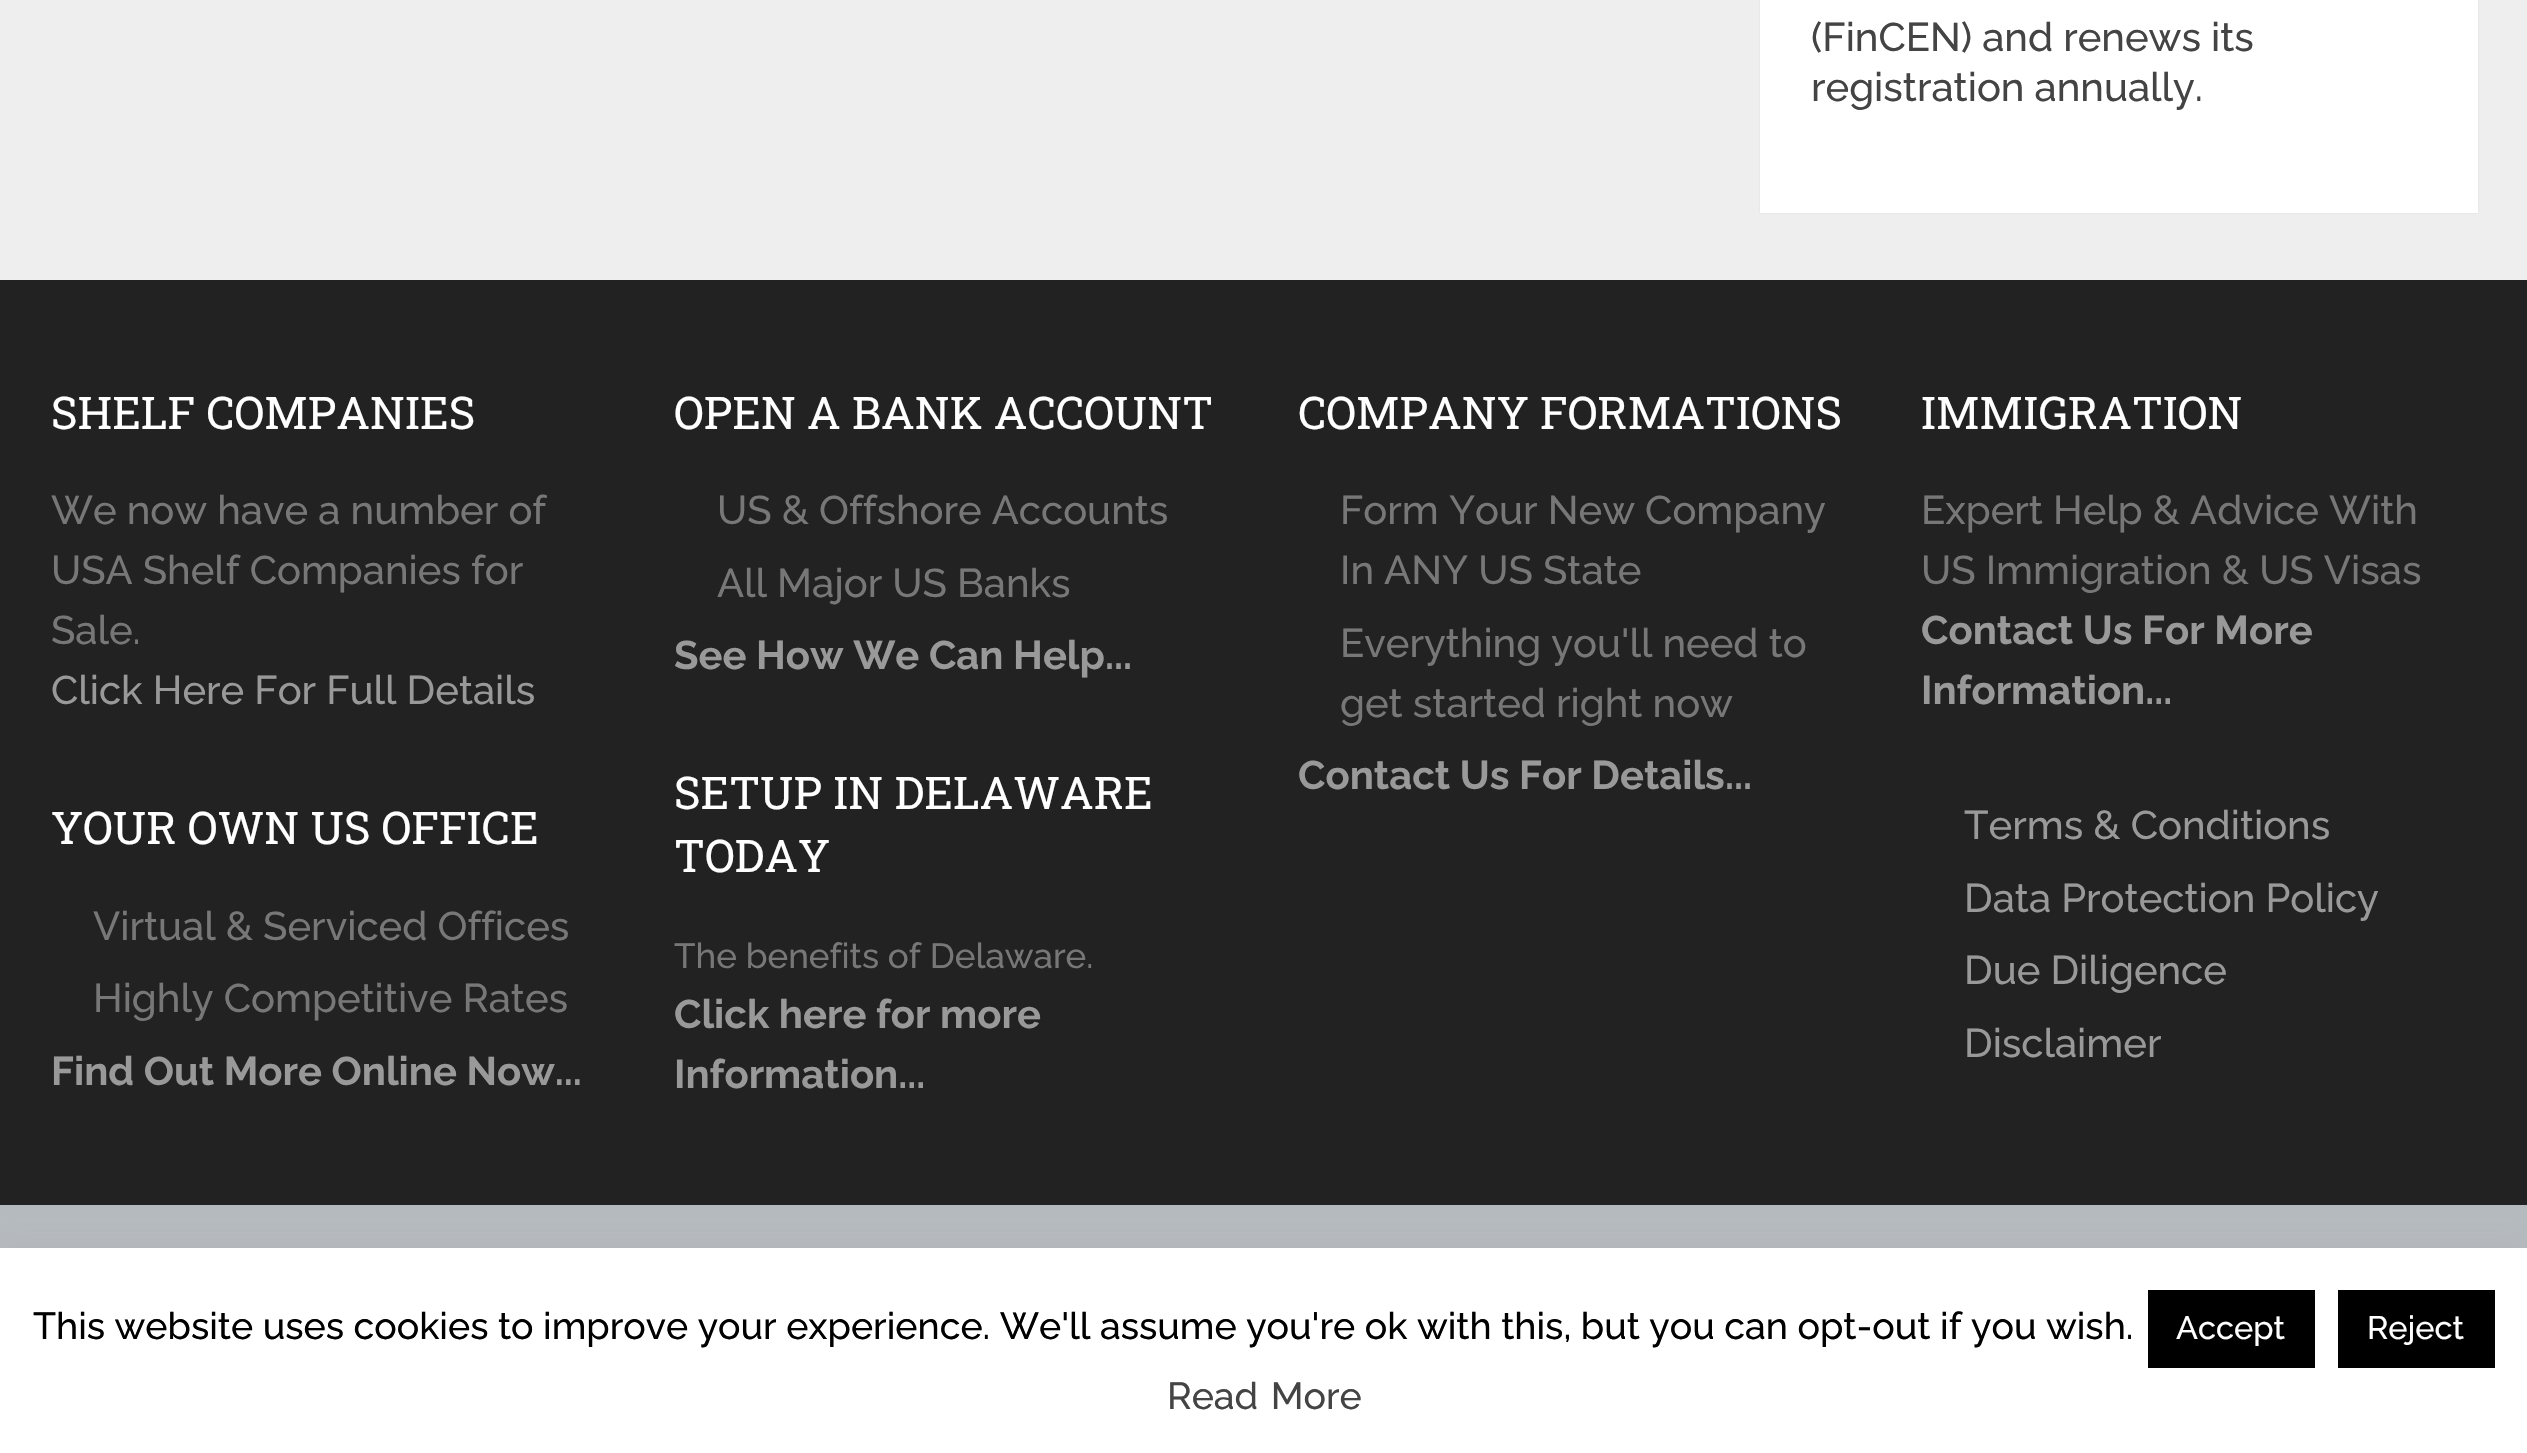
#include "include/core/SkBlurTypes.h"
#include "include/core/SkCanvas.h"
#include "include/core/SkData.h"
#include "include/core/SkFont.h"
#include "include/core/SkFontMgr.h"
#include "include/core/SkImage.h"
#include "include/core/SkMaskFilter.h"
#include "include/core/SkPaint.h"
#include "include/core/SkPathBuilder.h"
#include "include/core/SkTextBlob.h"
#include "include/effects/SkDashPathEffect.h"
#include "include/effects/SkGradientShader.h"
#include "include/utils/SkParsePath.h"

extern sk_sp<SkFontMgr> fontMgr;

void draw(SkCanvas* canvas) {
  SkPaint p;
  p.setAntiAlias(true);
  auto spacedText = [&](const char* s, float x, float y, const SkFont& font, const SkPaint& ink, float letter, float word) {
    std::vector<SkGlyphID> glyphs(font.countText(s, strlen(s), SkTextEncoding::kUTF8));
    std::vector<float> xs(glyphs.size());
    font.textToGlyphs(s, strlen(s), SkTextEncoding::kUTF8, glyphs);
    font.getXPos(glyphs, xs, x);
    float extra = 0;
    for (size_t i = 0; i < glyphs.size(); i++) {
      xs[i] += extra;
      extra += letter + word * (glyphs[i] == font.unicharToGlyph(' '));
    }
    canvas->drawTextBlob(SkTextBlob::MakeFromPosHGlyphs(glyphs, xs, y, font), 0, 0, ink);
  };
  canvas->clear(SkColorSetRGB(238, 238, 238));
  p.setColor(SkColorSetARGB(26, 50, 50, 50));
  p.setMaskFilter(SkMaskFilter::MakeBlur(kNormal_SkBlurStyle, 1));
  canvas->drawRect(SkRect::MakeLTRB(1760, -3, 2478, 213), p);
  p.setMaskFilter(nullptr);
  p.setColor(SK_ColorWHITE);
  canvas->drawRect(SkRect::MakeLTRB(1760, 0, 2478, 213), p);
  p.setColor(SkColorSetRGB(34, 34, 34));
  canvas->drawRect(SkRect::MakeLTRB(0, 280, 2527, 1205), p);
  p.setColor(SkColorSetRGB(181, 186, 191));
  canvas->drawRect(SkRect::MakeLTRB(0, 1205, 2527, 1248), p);
  p.setColor(SkColorSetARGB(77, 172, 171, 171));
  p.setMaskFilter(SkMaskFilter::MakeBlur(kNormal_SkBlurStyle, 12.5f));
  canvas->drawRect(SkRect::MakeLTRB(0, 1245, 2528, 1453), p);
  p.setMaskFilter(nullptr);
  p.setColor(SK_ColorWHITE);
  canvas->drawRect(SkRect::MakeLTRB(0, 1248, 2527, 1453), p);
  p.setColor(SK_ColorBLACK);
  canvas->drawRect(SkRect::MakeLTRB(2148, 1290, 2315, 1368), p);
  canvas->drawRect(SkRect::MakeLTRB(2338, 1290, 2495, 1368), p);
  SkFont font1(fontMgr->matchFamilyStyle("Raleway", SkFontStyle(500, SkFontStyle::kNormal_Width, SkFontStyle::kUpright_Slant)), 40);
  font1.setSubpixel(true);
  p.setColor(SkColorSetRGB(68, 68, 68));
  canvas->drawString("(FinCEN) and renews its", 1811, 51, font1, p);
  canvas->drawString("registration annually.", 1811, 101, font1, p);
  SkFont font2(fontMgr->matchFamilyStyle("Roboto Slab", SkFontStyle::Normal()), 45);
  font2.setSubpixel(true);
  p.setColor(SK_ColorWHITE);
  canvas->drawString("SHELF COMPANIES", 51, 429, font2, p);
  p.setColor(SkColorSetRGB(119, 119, 119));
  canvas->drawString("We now have a number of", 51, 524, font1, p);
  canvas->drawString("USA Shelf Companies for", 51, 584, font1, p);
  canvas->drawString("Sale.", 51, 644, font1, p);
  p.setColor(SkColorSetRGB(153, 153, 153));
  canvas->drawString("Click Here For Full Details", 51, 704, font1, p);
  p.setColor(SK_ColorWHITE);
  canvas->drawString("YOUR OWN US OFFICE", 51, 844, font2, p);
  p.setColor(SkColorSetRGB(119, 119, 119));
  canvas->drawString("Virtual & Serviced Offices", 93, 940, font1, p);
  canvas->drawString("Highly Competitive Rates", 93, 1012, font1, p);
  SkFont font3(fontMgr->matchFamilyStyle("Raleway", SkFontStyle::Bold()), 40);
  font3.setSubpixel(true);
  p.setColor(SkColorSetRGB(153, 153, 153));
  canvas->drawString("Find Out More Online Now...", 51, 1085, font3, p);
  p.setColor(SK_ColorWHITE);
  canvas->drawString("OPEN A BANK ACCOUNT", 674, 429, font2, p);
  p.setColor(SkColorSetRGB(119, 119, 119));
  canvas->drawString("US & Offshore Accounts", 717, 524, font1, p);
  canvas->drawString("All Major US Banks", 717, 597, font1, p);
  p.setColor(SkColorSetRGB(153, 153, 153));
  canvas->drawString("See How We Can Help...", 674, 669, font3, p);
  p.setColor(SK_ColorWHITE);
  canvas->drawString("SETUP IN DELAWARE", 674, 809, font2, p);
  canvas->drawString("TODAY", 674, 872, font2, p);
  SkFont font4(fontMgr->matchFamilyStyle("Raleway", SkFontStyle(500, SkFontStyle::kNormal_Width, SkFontStyle::kUpright_Slant)), 35);
  font4.setSubpixel(true);
  p.setColor(SkColorSetRGB(119, 119, 119));
  canvas->drawString("The benefits of Delaware.", 674, 968, font4, p);
  p.setColor(SkColorSetRGB(153, 153, 153));
  canvas->drawString("Click here for more", 674, 1028, font3, p);
  canvas->drawString("Information...", 674, 1088, font3, p);
  p.setColor(SK_ColorWHITE);
  canvas->drawString("COMPANY FORMATIONS", 1298, 429, font2, p);
  p.setColor(SkColorSetRGB(119, 119, 119));
  canvas->drawString("Form Your New Company", 1340, 524, font1, p);
  canvas->drawString("In ANY US State", 1340, 584, font1, p);
  canvas->drawString("Everything you'll need to", 1340, 657, font1, p);
  canvas->drawString("get started right now", 1340, 717, font1, p);
  p.setColor(SkColorSetRGB(153, 153, 153));
  canvas->drawString("Contact Us For Details...", 1298, 789, font3, p);
  p.setColor(SK_ColorWHITE);
  canvas->drawString("IMMIGRATION", 1921, 429, font2, p);
  p.setColor(SkColorSetRGB(119, 119, 119));
  canvas->drawString("Expert Help & Advice With", 1921, 524, font1, p);
  canvas->drawString("US Immigration & US Visas", 1921, 584, font1, p);
  p.setColor(SkColorSetRGB(153, 153, 153));
  canvas->drawString("Contact Us For More", 1921, 644, font3, p);
  canvas->drawString("Information...", 1921, 704, font3, p);
  canvas->drawString("Terms & Conditions", 1964, 839, font1, p);
  canvas->drawString("Data Protection Policy", 1964, 912, font1, p);
  canvas->drawString("Due Diligence", 1964, 984, font1, p);
  canvas->drawString("Disclaimer", 1964, 1057, font1, p);
  SkFont font5(fontMgr->matchFamilyStyle("Raleway", SkFontStyle(500, SkFontStyle::kNormal_Width, SkFontStyle::kUpright_Slant)), 37.5f);
  font5.setSubpixel(true);
  p.setColor(SK_ColorBLACK);
  canvas->drawString("This website uses cookies to improve your experience. We'll assume you're ok with this, but you can opt-out if you wish.", 33, 1339, font5, p);
  SkFont font6(fontMgr->matchFamilyStyle("Raleway", SkFontStyle(500, SkFontStyle::kNormal_Width, SkFontStyle::kUpright_Slant)), 32.5f);
  font6.setSubpixel(true);
  p.setColor(SK_ColorWHITE);
  canvas->drawString("Accept", 2176, 1339, font6, p);
  canvas->drawString("Reject", 2367, 1339, font6, p);
  p.setColor(SkColorSetRGB(68, 68, 68));
  spacedText("Read More", 1167, 1409, font5, p, 0, 3);
}
